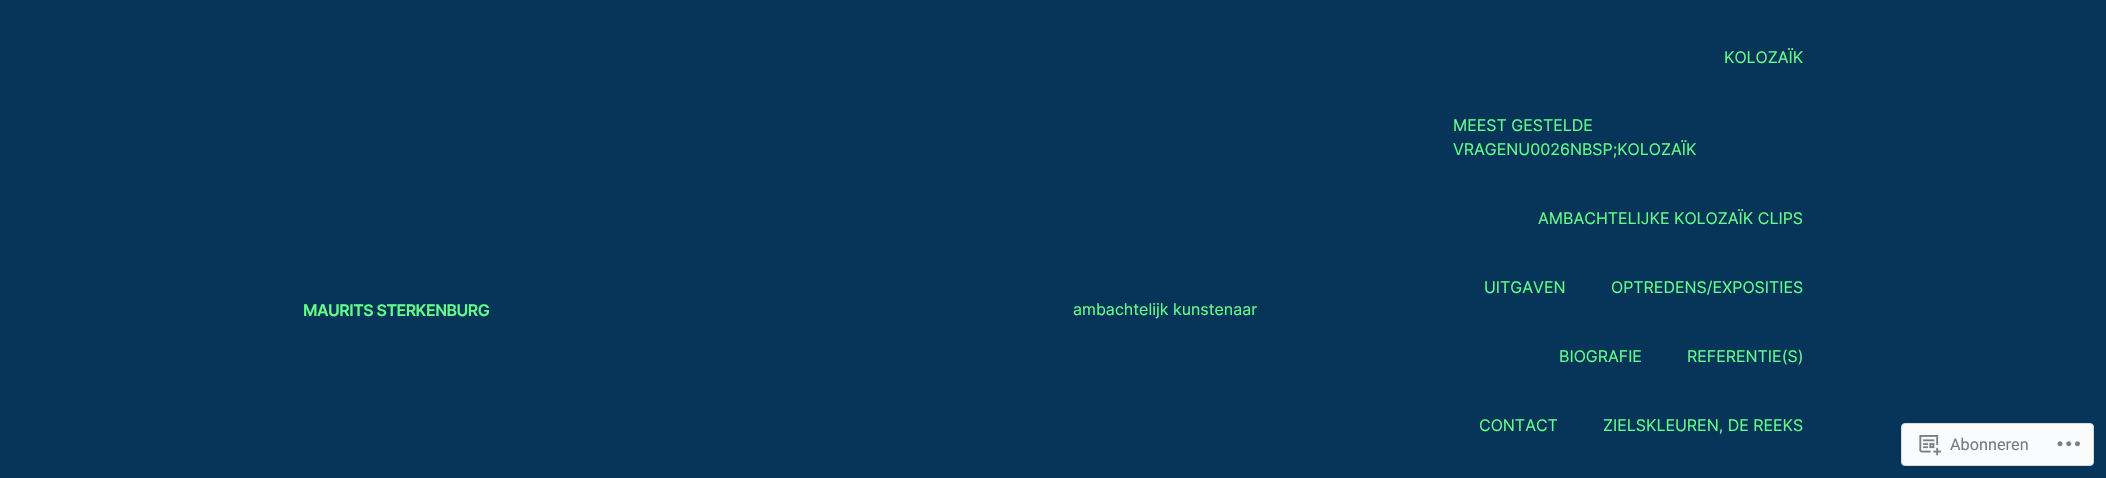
#include "include/core/SkBlurTypes.h"
#include "include/core/SkCanvas.h"
#include "include/core/SkData.h"
#include "include/core/SkFont.h"
#include "include/core/SkFontMgr.h"
#include "include/core/SkImage.h"
#include "include/core/SkMaskFilter.h"
#include "include/core/SkPaint.h"
#include "include/core/SkPathBuilder.h"
#include "include/core/SkTextBlob.h"
#include "include/effects/SkDashPathEffect.h"
#include "include/effects/SkGradientShader.h"
#include "include/utils/SkParsePath.h"

extern sk_sp<SkFontMgr> fontMgr;

void draw(SkCanvas* canvas) {
  SkPaint p;
  p.setAntiAlias(true);
  auto spacedText = [&](const char* s, float x, float y, const SkFont& font, const SkPaint& ink, float letter, float word) {
    std::vector<SkGlyphID> glyphs(font.countText(s, strlen(s), SkTextEncoding::kUTF8));
    std::vector<float> xs(glyphs.size());
    font.textToGlyphs(s, strlen(s), SkTextEncoding::kUTF8, glyphs);
    font.getXPos(glyphs, xs, x);
    float extra = 0;
    for (size_t i = 0; i < glyphs.size(); i++) {
      xs[i] += extra;
      extra += letter + word * (glyphs[i] == font.unicharToGlyph(' '));
    }
    canvas->drawTextBlob(SkTextBlob::MakeFromPosHGlyphs(glyphs, xs, y, font), 0, 0, ink);
  };
  canvas->clear(SkColorSetRGB(6, 53, 89));
  p.setColor(SkColorSetRGB(250, 251, 252));
  canvas->drawRoundRect(SkRect::MakeLTRB(1901.5f, 423.5f, 2093.5f, 465.5f), 3.5f, 3.5f, p);
  p.setStyle(SkPaint::kStroke_Style);
  p.setStrokeWidth(1);
  p.setColor(SkColorSetRGB(216, 217, 219));
  canvas->drawRoundRect(SkRect::MakeLTRB(1901.5f, 423.5f, 2093.5f, 465.5f), 3.5f, 3.5f, p);
  canvas->drawImageRect(SkImages::DeferredFromEncodedData(SkData::MakeFromFileName("images/1.png")), SkRect::MakeLTRB(1919, 435, 1941, 456), SkSamplingOptions());
  canvas->drawImageRect(SkImages::DeferredFromEncodedData(SkData::MakeFromFileName("images/2.png")), SkRect::MakeLTRB(2057, 441, 2080, 447), SkSamplingOptions());
  SkFont font1(fontMgr->matchFamilyStyle("Inter", SkFontStyle(600, SkFontStyle::kNormal_Width, SkFontStyle::kUpright_Slant)), 16);
  font1.setSubpixel(true);
  p.setStyle(SkPaint::kFill_Style);
  p.setColor(SkColorSetRGB(98, 255, 136));
  spacedText("MAURITS STERKENBURG", 303, 316, font1, p, -0.5f, 0);
  SkFont font2(fontMgr->matchFamilyStyle("Inter", SkFontStyle::Normal()), 16);
  font2.setSubpixel(true);
  canvas->drawString("ambachtelijk kunstenaar", 1073, 315, font2, p);
  canvas->drawString("KOLOZAÏK", 1724, 63, font2, p);
  canvas->drawString("MEEST GESTELDE", 1453, 131, font2, p);
  canvas->drawString("VRAGENU0026NBSP;KOLOZAÏK", 1453, 155, font2, p);
  canvas->drawString("AMBACHTELIJKE KOLOZAÏK CLIPS", 1538, 224, font2, p);
  canvas->drawString("UITGAVEN", 1484, 293, font2, p);
  canvas->drawString("OPTREDENS/EXPOSITIES", 1611, 293, font2, p);
  canvas->drawString("BIOGRAFIE", 1559, 362, font2, p);
  canvas->drawString("REFERENTIE(S)", 1687, 362, font2, p);
  canvas->drawString("CONTACT", 1479, 431, font2, p);
  canvas->drawString("ZIELSKLEUREN, DE REEKS", 1603, 431, font2, p);
  SkFont font3(fontMgr->matchFamilyStyle("Roboto", SkFontStyle::Normal()), 16.25f);
  font3.setSubpixel(true);
  p.setColor(SkColorSetRGB(118, 123, 129));
  canvas->drawString("Abonneren", 1950, 450, font3, p);
}
